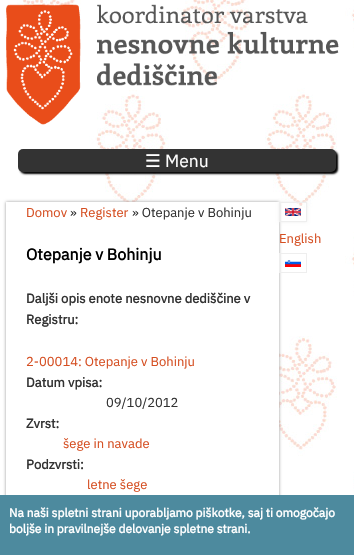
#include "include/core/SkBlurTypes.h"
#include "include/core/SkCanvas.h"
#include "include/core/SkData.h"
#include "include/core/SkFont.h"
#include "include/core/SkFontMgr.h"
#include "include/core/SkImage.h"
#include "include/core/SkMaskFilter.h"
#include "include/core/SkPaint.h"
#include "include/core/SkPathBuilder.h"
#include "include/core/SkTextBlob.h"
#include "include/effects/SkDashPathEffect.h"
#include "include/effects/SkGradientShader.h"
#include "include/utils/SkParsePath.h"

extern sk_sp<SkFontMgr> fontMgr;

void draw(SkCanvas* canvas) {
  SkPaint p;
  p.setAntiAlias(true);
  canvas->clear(SK_ColorWHITE);
  canvas->drawImageRect(SkImages::DeferredFromEncodedData(SkData::MakeFromFileName("images/1.png")), SkRect::MakeLTRB(9, 0, 354, 495), SkSamplingOptions());
  canvas->drawImageRect(SkImages::DeferredFromEncodedData(SkData::MakeFromFileName("images/2.png")), SkRect::MakeLTRB(6, 4, 339, 125), SkSamplingOptions());
  p.setColor(SK_ColorBLACK);
  p.setMaskFilter(SkMaskFilter::MakeBlur(kNormal_SkBlurStyle, 1));
  canvas->drawRoundRect(SkRect::MakeLTRB(20, 151, 338, 174), 5, 5, p);
  p.setMaskFilter(nullptr);
  p.setColor(SkColorSetRGB(51, 51, 51));
  canvas->drawRoundRect(SkRect::MakeLTRB(18, 149, 336, 172), 5, 5, p);
  p.setColor(SkColorSetRGB(153, 153, 153));
  p.setMaskFilter(SkMaskFilter::MakeBlur(kNormal_SkBlurStyle, 1.5f));
  canvas->drawRect(SkRect::MakeLTRB(6, 202, 279, 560), p);
  p.setMaskFilter(nullptr);
  p.setColor(SK_ColorWHITE);
  canvas->drawRect(SkRect::MakeLTRB(6, 202, 279, 495), p);
  canvas->save();
  canvas->clipPath(SkPathBuilder(SkPathFillType::kEvenOdd).moveTo(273, 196).lineTo(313, 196).lineTo(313, 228).lineTo(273, 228).close().moveTo(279, 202).lineTo(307, 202).lineTo(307, 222).lineTo(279, 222).close().detach(), true);
  p.setColor(SkColorSetRGB(238, 238, 238));
  p.setMaskFilter(SkMaskFilter::MakeBlur(kNormal_SkBlurStyle, 1.5f));
  canvas->drawRect(SkRect::MakeLTRB(279, 202, 307, 222), p);
  p.setMaskFilter(nullptr);
  canvas->restore();
  p.setStyle(SkPaint::kStroke_Style);
  p.setStrokeWidth(1);
  canvas->drawRect(SkRect::MakeLTRB(279.5f, 202.5f, 306.5f, 221.5f), p);
  canvas->drawImageRect(SkImages::DeferredFromEncodedData(SkData::MakeFromFileName("images/3.png")), SkRect::MakeLTRB(285, 208, 301, 216), SkSamplingOptions());
  canvas->drawRect(SkRect::MakeLTRB(279.5f, 253.5f, 306.5f, 272.5f), p);
  canvas->drawImageRect(SkImages::DeferredFromEncodedData(SkData::MakeFromFileName("images/4.png")), SkRect::MakeLTRB(285, 260, 301, 267), SkSamplingOptions());
  p.setStyle(SkPaint::kFill_Style);
  p.setColor(SkColorSetRGB(77, 138, 158));
  canvas->drawRect(SkRect::MakeLTRB(0, 495, 354, 555), p);
  SkFont font1(fontMgr->matchFamilyStyle("DejaVu Sans", SkFontStyle::Normal()), 17.5f);
  font1.setSubpixel(true);
  p.setColor(SK_ColorWHITE);
  canvas->drawString("☰", 145, 167, font1, p);
  SkFont font2(fontMgr->matchFamilyStyle("IBM Plex Sans", SkFontStyle::Normal()), 17.5f);
  font2.setSubpixel(true);
  canvas->drawString("Menu", 165, 167, font2, p);
  SkFont font3(fontMgr->matchFamilyStyle("IBM Plex Sans", SkFontStyle::Normal()), 13);
  font3.setSubpixel(true);
  p.setColor(SkColorSetRGB(213, 78, 33));
  canvas->drawString("Domov", 26, 217, font3, p);
  p.setColor(SkColorSetRGB(51, 51, 51));
  canvas->drawString("»", 70, 217, font3, p);
  p.setColor(SkColorSetRGB(213, 78, 33));
  canvas->drawString("Register", 80, 217, font3, p);
  p.setColor(SkColorSetRGB(51, 51, 51));
  canvas->drawString("» Otepanje v Bohinju", 132, 217, font3, p);
  SkFont font4(fontMgr->matchFamilyStyle("IBM Plex Sans", SkFontStyle::Bold()), 16);
  font4.setSubpixel(true);
  p.setColor(SK_ColorBLACK);
  canvas->drawString("Otepanje v Bohinju", 26, 260, font4, p);
  SkFont font5(fontMgr->matchFamilyStyle("IBM Plex Sans", SkFontStyle::Bold()), 13);
  font5.setSubpixel(true);
  p.setColor(SkColorSetRGB(51, 51, 51));
  canvas->drawString("Daljši opis enote nesnovne dediščine v", 26, 303, font5, p);
  canvas->drawString("Registru:", 26, 324, font5, p);
  p.setColor(SkColorSetRGB(213, 78, 33));
  canvas->drawString("2-00014: Otepanje v Bohinju", 26, 366, font3, p);
  p.setColor(SkColorSetRGB(51, 51, 51));
  canvas->drawString("Datum vpisa:", 26, 387, font5, p);
  canvas->drawString("09/10/2012", 106, 407, font3, p);
  canvas->drawString("Zvrst:", 26, 428, font5, p);
  p.setColor(SkColorSetRGB(213, 78, 33));
  canvas->drawString("šege in navade", 63, 448, font3, p);
  p.setColor(SkColorSetRGB(51, 51, 51));
  canvas->drawString("Podzvrsti:", 26, 469, font5, p);
  p.setColor(SkColorSetRGB(213, 78, 33));
  canvas->drawString("letne šege", 87, 489, font3, p);
  canvas->drawString("English", 279, 243, font3, p);
  SkFont font6(fontMgr->matchFamilyStyle("IBM Plex Sans", SkFontStyle::Bold()), 12);
  font6.setSubpixel(true);
  p.setColor(SK_ColorWHITE);
  canvas->drawString("Na naši spletni strani uporabljamo piškotke, saj ti omogočajo", 9, 517, font6, p);
  canvas->drawString("boljše in pravilnejše delovanje spletne strani.", 9, 533, font6, p);
}
